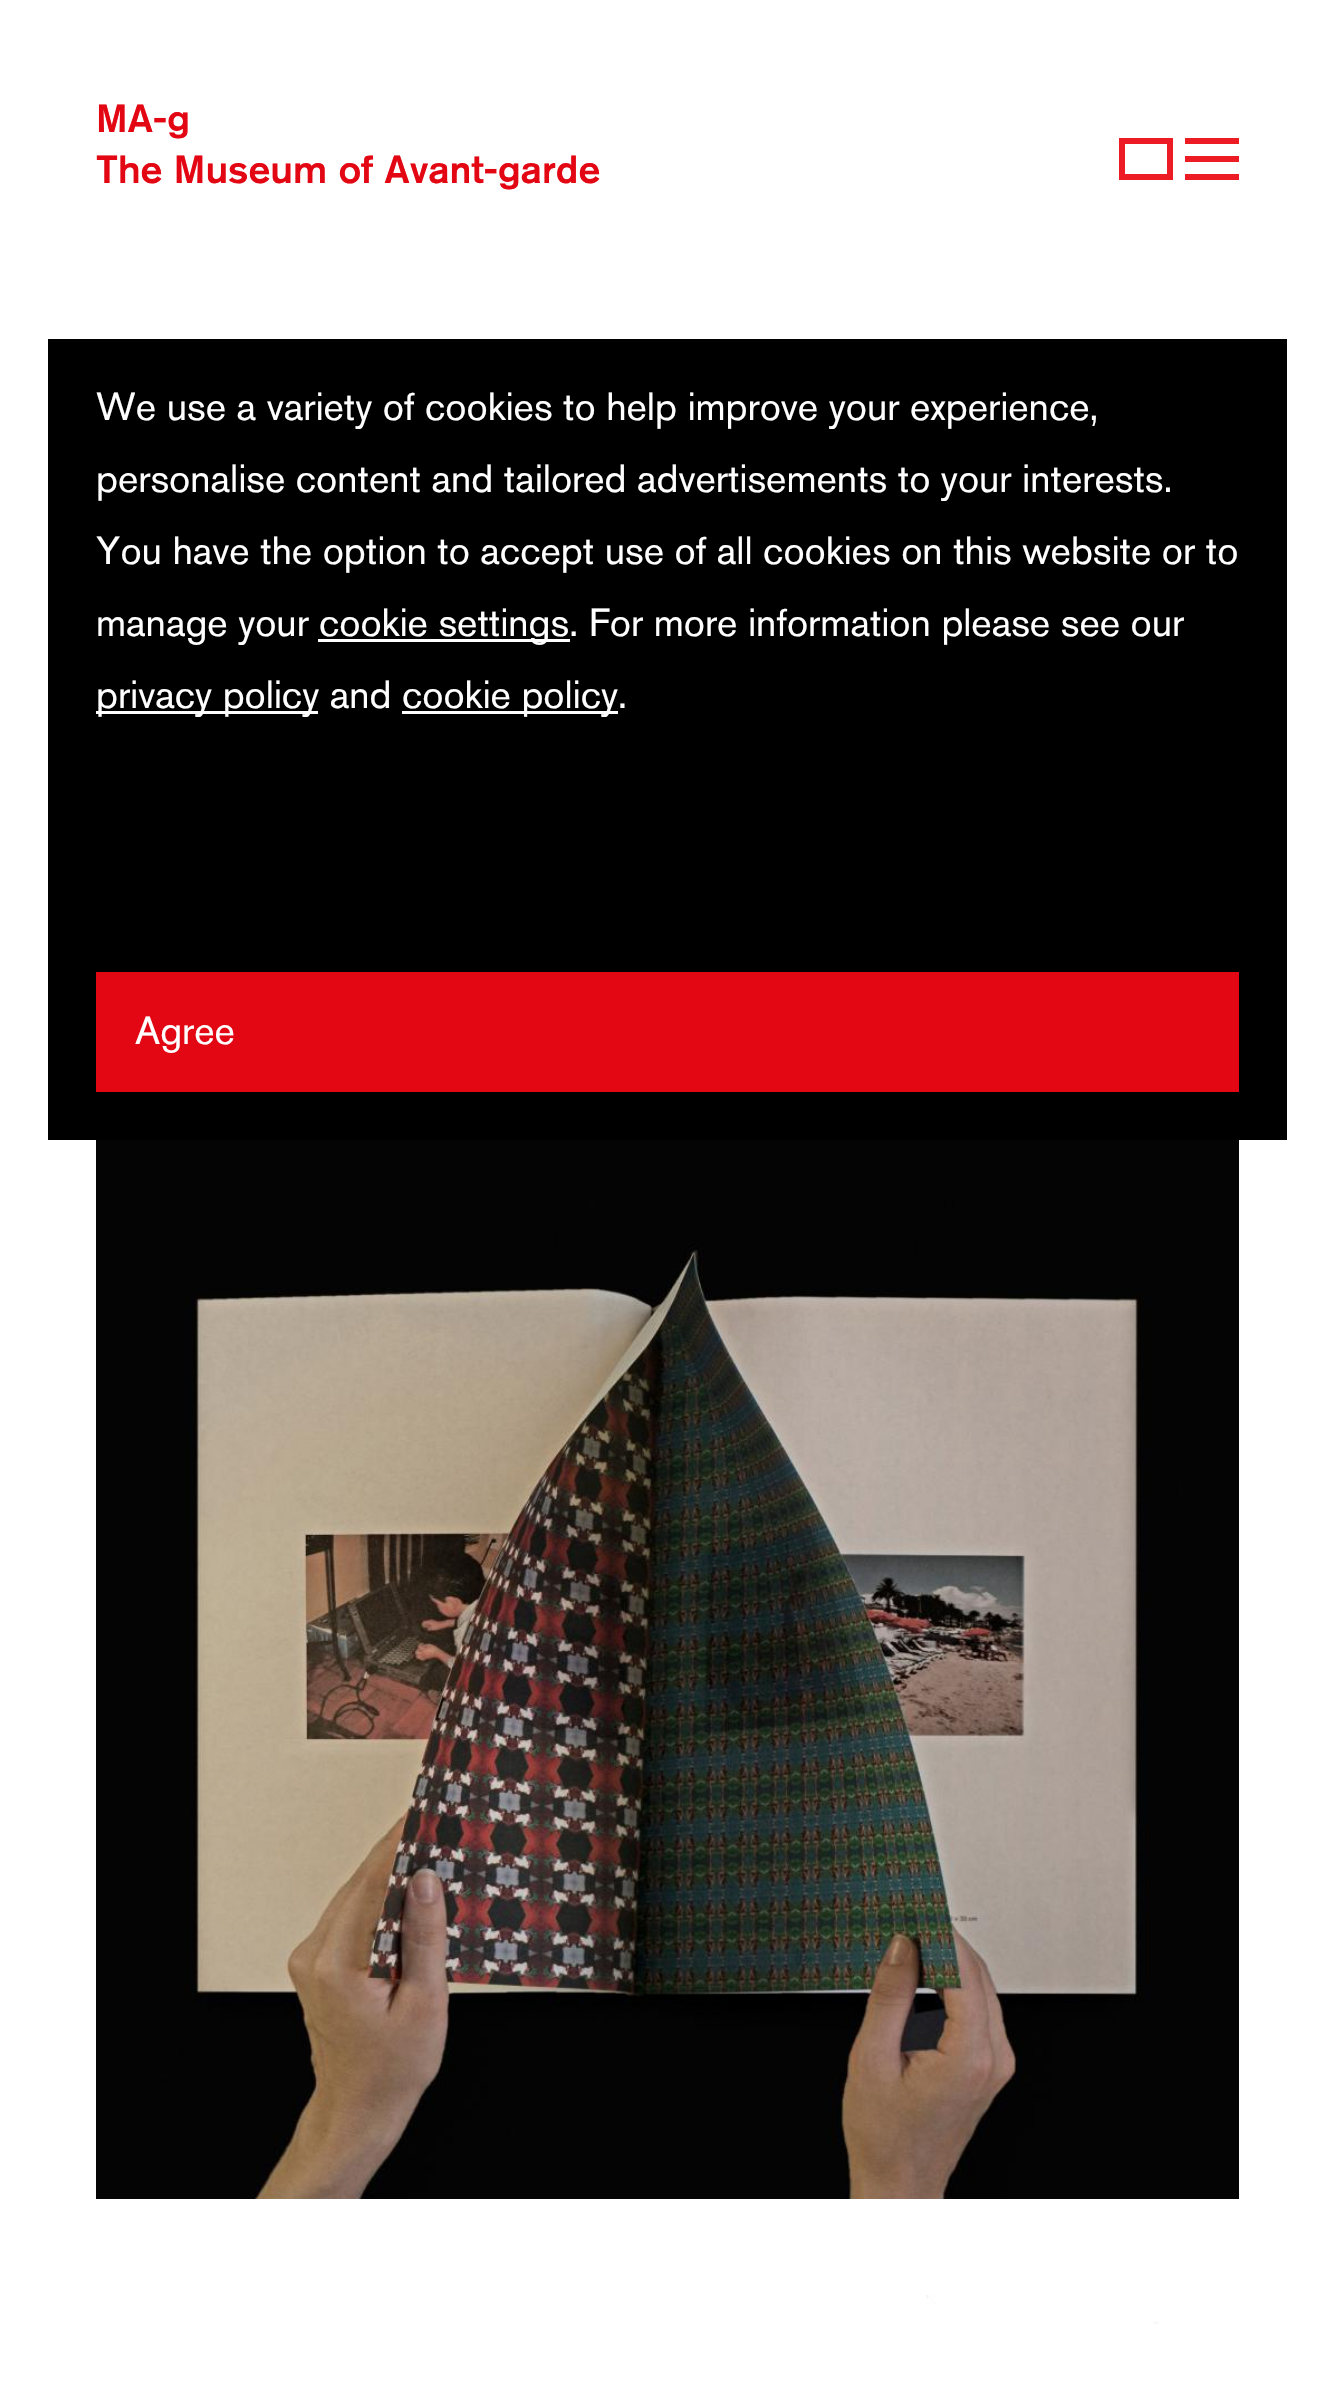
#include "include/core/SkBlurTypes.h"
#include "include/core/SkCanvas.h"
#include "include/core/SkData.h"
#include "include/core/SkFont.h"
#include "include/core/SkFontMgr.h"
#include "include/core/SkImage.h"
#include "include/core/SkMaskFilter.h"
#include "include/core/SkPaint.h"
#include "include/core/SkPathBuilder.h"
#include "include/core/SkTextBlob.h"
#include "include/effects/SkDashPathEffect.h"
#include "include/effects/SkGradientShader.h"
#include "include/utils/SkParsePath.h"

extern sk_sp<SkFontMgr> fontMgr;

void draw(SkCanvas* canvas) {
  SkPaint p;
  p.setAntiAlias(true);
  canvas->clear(SK_ColorWHITE);
  p.setStyle(SkPaint::kStroke_Style);
  p.setStrokeWidth(6);
  p.setColor(SkColorSetRGB(237, 28, 36));
  canvas->drawRect(SkRect::MakeLTRB(1122, 141, 1170, 177), p);
  p.setStyle(SkPaint::kFill_Style);
  canvas->drawRect(SkRect::MakeLTRB(1185, 138, 1239, 144), p);
  canvas->drawRect(SkRect::MakeLTRB(1185, 156, 1239, 162), p);
  canvas->drawRect(SkRect::MakeLTRB(1185, 174, 1239, 180), p);
  p.setColor(SK_ColorBLACK);
  canvas->drawRect(SkRect::MakeLTRB(48, 339, 1287, 1140), p);
  p.setColor(SK_ColorWHITE);
  canvas->drawRect(SkRect::MakeLTRB(318, 639, 570, 642), p);
  canvas->drawRect(SkRect::MakeLTRB(96, 711, 318, 714), p);
  canvas->drawRect(SkRect::MakeLTRB(402, 711, 618, 714), p);
  p.setColor(SkColorSetRGB(227, 6, 19));
  canvas->drawRect(SkRect::MakeLTRB(96, 972, 1239, 1092), p);
  canvas->drawImageRect(SkImages::DeferredFromEncodedData(SkData::MakeFromFileName("images/1.png")), SkRect::MakeLTRB(96, 1140, 1239, 2199), SkSamplingOptions());
  canvas->drawImageRect(SkImages::DeferredFromEncodedData(SkData::MakeFromFileName("images/2.png")), SkRect::MakeLTRB(926, 2295, 1159, 2324), SkSamplingOptions());
  SkFont font1(fontMgr->matchFamilyStyle("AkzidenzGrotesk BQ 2", SkFontStyle(500, SkFontStyle::kNormal_Width, SkFontStyle::kUpright_Slant)), 39);
  font1.setSubpixel(true);
  canvas->drawString("MA-g", 96, 132, font1, p);
  canvas->drawString("The Museum of Avant-garde", 96, 183, font1, p);
  SkFont font2(fontMgr->matchFamilyStyle("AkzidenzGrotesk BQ", SkFontStyle(500, SkFontStyle::kNormal_Width, SkFontStyle::kUpright_Slant)), 39);
  font2.setSubpixel(true);
  p.setColor(SK_ColorWHITE);
  canvas->drawString("We use a variety of cookies to help improve your experience,", 96, 420, font2, p);
  canvas->drawString("personalise content and tailored advertisements to your interests.", 96, 492, font2, p);
  canvas->drawString("You have the option to accept use of all cookies on this website or to", 96, 564, font2, p);
  canvas->drawString("manage your", 96, 636, font2, p);
  canvas->drawString("cookie settings. For more information please see our", 319, 636, font2, p);
  canvas->drawString("privacy policy and", 96, 708, font2, p);
  canvas->drawString("cookie policy.", 402, 708, font2, p);
  canvas->drawString("Agree", 135, 1044, font2, p);
}
